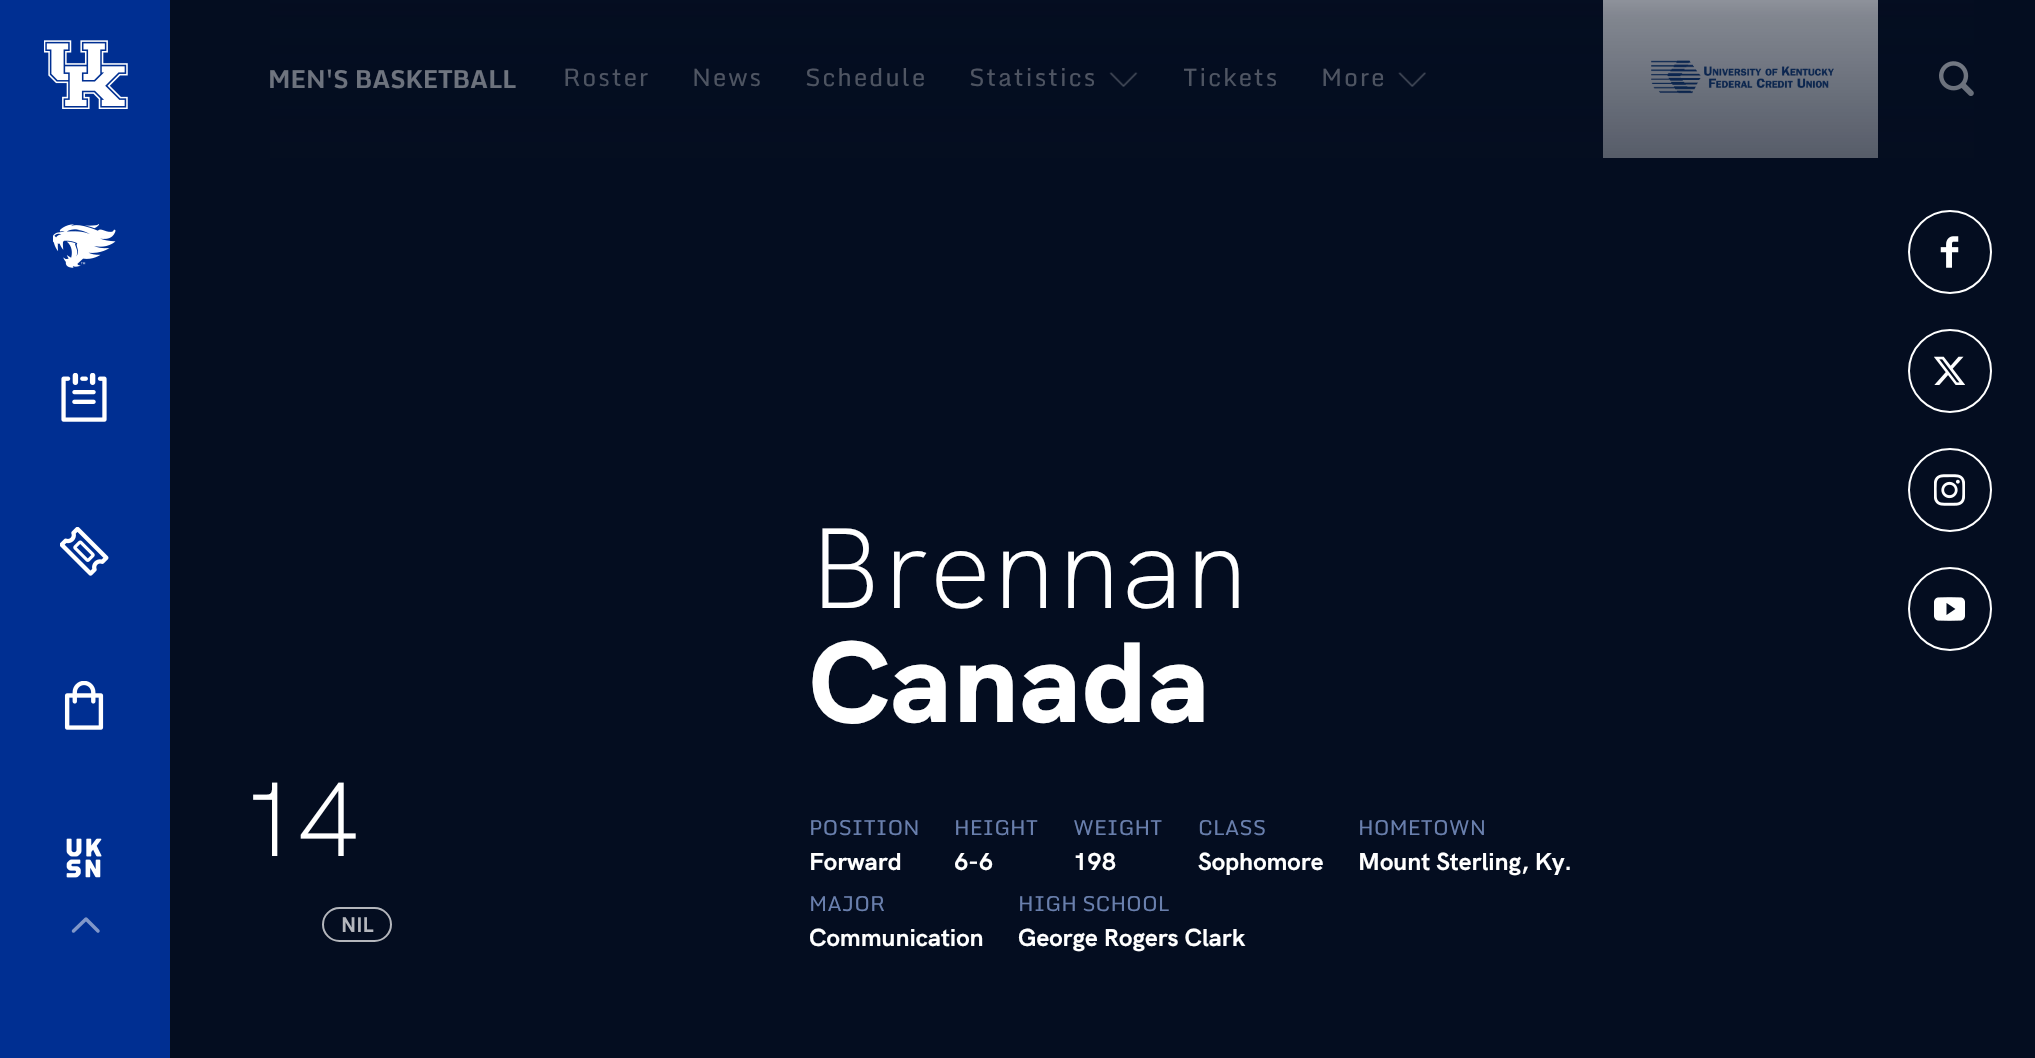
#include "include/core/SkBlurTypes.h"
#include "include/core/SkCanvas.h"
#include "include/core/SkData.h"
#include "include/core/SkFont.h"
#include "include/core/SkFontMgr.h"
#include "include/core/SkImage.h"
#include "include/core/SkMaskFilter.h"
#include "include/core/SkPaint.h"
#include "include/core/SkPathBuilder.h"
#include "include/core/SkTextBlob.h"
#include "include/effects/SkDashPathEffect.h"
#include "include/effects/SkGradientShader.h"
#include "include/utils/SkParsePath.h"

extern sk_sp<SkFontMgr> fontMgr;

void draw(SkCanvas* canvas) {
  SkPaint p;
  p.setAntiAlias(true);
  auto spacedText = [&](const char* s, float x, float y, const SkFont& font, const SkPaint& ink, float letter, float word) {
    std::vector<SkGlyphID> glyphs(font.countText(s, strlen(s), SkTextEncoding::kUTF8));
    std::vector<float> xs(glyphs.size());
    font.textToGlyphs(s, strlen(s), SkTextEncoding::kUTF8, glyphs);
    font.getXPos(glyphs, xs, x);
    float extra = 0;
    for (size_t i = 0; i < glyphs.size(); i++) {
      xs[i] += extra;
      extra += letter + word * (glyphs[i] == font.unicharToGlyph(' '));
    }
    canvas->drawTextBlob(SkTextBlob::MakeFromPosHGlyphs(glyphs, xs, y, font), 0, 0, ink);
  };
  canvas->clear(SkColorSetRGB(4, 13, 32));
  p.setColor(SkColorSetRGB(0, 47, 146));
  canvas->drawRect(SkRect::MakeLTRB(0, 0, 170, 1058), p);
  canvas->drawImageRect(SkImages::DeferredFromEncodedData(SkData::MakeFromFileName("images/1.png")), SkRect::MakeLTRB(44, 40, 128, 109), SkSamplingOptions());
  canvas->drawImageRect(SkImages::DeferredFromEncodedData(SkData::MakeFromFileName("images/2.png")), SkRect::MakeLTRB(53, 224, 116, 268), SkSamplingOptions());
  canvas->drawImageRect(SkImages::DeferredFromEncodedData(SkData::MakeFromFileName("images/3.png")), SkRect::MakeLTRB(61, 373, 107, 422), SkSamplingOptions());
  canvas->drawImageRect(SkImages::DeferredFromEncodedData(SkData::MakeFromFileName("images/4.png")), SkRect::MakeLTRB(60, 527, 109, 576), SkSamplingOptions());
  canvas->drawImageRect(SkImages::DeferredFromEncodedData(SkData::MakeFromFileName("images/5.png")), SkRect::MakeLTRB(64, 681, 104, 730), SkSamplingOptions());
  canvas->drawImageRect(SkImages::DeferredFromEncodedData(SkData::MakeFromFileName("images/6.png")), SkRect::MakeLTRB(66, 838, 102, 878), SkSamplingOptions());
  p.setStyle(SkPaint::kStroke_Style);
  p.setStrokeWidth(3.5f);
  p.setStrokeCap(SkPaint::kRound_Cap);
  p.setStrokeJoin(SkPaint::kRound_Join);
  p.setColor(SkColorSetRGB(128, 151, 201));
  canvas->drawPath(SkPathBuilder().moveTo(73.5f, 931).lineTo(86, 919).lineTo(98, 931).detach(), p);
  canvas->drawImageRect(SkImages::DeferredFromEncodedData(SkData::MakeFromFileName("images/7.png")), SkRect::MakeLTRB(1109, 72, 1138, 87), SkSamplingOptions());
  canvas->drawImageRect(SkImages::DeferredFromEncodedData(SkData::MakeFromFileName("images/8.png")), SkRect::MakeLTRB(1398, 72, 1426, 87), SkSamplingOptions());
  p.setStyle(SkPaint::kFill_Style);
  p.setColor(SK_ColorWHITE);
  canvas->drawRect(SkRect::MakeLTRB(1603, 0, 1878, 158), p);
  canvas->drawImageRect(SkImages::DeferredFromEncodedData(SkData::MakeFromFileName("images/9.png")), SkRect::MakeLTRB(1651, 60, 1834, 94), SkSamplingOptions());
  canvas->drawImageRect(SkImages::DeferredFromEncodedData(SkData::MakeFromFileName("images/10.png")), SkRect::MakeLTRB(1939, 61, 1974, 96), SkSamplingOptions());
  p.setStyle(SkPaint::kStroke_Style);
  p.setStrokeWidth(2);
  p.setStrokeCap(SkPaint::kButt_Cap);
  p.setStrokeJoin(SkPaint::kMiter_Join);
  canvas->drawCircle(1950, 252, 41, p);
  canvas->drawImageRect(SkImages::DeferredFromEncodedData(SkData::MakeFromFileName("images/11.png")), SkRect::MakeLTRB(1940, 236, 1959, 268), SkSamplingOptions());
  canvas->drawCircle(1950, 371, 41, p);
  canvas->drawImageRect(SkImages::DeferredFromEncodedData(SkData::MakeFromFileName("images/12.png")), SkRect::MakeLTRB(1934, 356, 1965, 385), SkSamplingOptions());
  canvas->drawCircle(1950, 490, 41, p);
  canvas->drawImageRect(SkImages::DeferredFromEncodedData(SkData::MakeFromFileName("images/13.png")), SkRect::MakeLTRB(1934, 474, 1965, 506), SkSamplingOptions());
  canvas->drawCircle(1950, 609, 41, p);
  canvas->drawImageRect(SkImages::DeferredFromEncodedData(SkData::MakeFromFileName("images/14.png")), SkRect::MakeLTRB(1934, 597, 1965, 621), SkSamplingOptions());
  p.setColor(SkColorSetRGB(180, 182, 188));
  canvas->drawRoundRect(SkRect::MakeLTRB(323, 908, 391, 941), 16.5f, 16.5f, p);
  SkFont font1(fontMgr->matchFamilyStyle("Monda", SkFontStyle::Bold()), 24.5f);
  font1.setSubpixel(true);
  p.setStyle(SkPaint::kFill_Style);
  p.setColor(SK_ColorWHITE);
  canvas->drawString("MEN'S BASKETBALL", 268, 88, font1, p);
  SkFont font2(fontMgr->matchFamilyStyle("Monda", SkFontStyle::Normal()), 24.5f);
  font2.setSubpixel(true);
  p.setColor(SkColorSetRGB(180, 182, 188));
  spacedText("Roster", 563, 86, font2, p, 1.75f, 0);
  spacedText("News", 692, 86, font2, p, 1.75f, 0);
  spacedText("Schedule", 805, 86, font2, p, 1.75f, 0);
  spacedText("Statistics", 969, 86, font2, p, 1.75f, 0);
  spacedText("Tickets", 1183, 86, font2, p, 1.75f, 0);
  spacedText("More", 1321, 86, font2, p, 1.75f, 0);
  {
    const SkColor colors[] = {SkColorSetRGB(4, 13, 32), SkColorSetARGB(204, 4, 13, 32), SkColorSetARGB(128, 4, 13, 32), SkColorSetARGB(0, 4, 13, 32)};
    const float stops[] = {0, 0.4f, 0.75f, 1};
    const SkPoint ends[] = {{982, 543}, {982, -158}};
    p.setShader(SkGradientShader::MakeLinear(ends, colors, stops, 4, SkTileMode::kClamp));
    p.setAlpha(255);
  }
  canvas->drawRect(SkRect::MakeLTRB(270, 0, 1974, 158), p);
  SkFont font3(fontMgr->matchFamilyStyle("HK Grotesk", SkFontStyle(300, SkFontStyle::kNormal_Width, SkFontStyle::kUpright_Slant)), 105);
  font3.setSubpixel(true);
  p.setShader(nullptr);
  p.setColor(SK_ColorWHITE);
  canvas->drawString("14", 240, 856, font3, p);
  SkFont font4(fontMgr->matchFamilyStyle("HK Grotesk", SkFontStyle::Bold()), 21);
  font4.setSubpixel(true);
  p.setColor(SkColorSetRGB(180, 182, 188));
  canvas->drawString("NIL", 341, 932, font4, p);
  SkFont font5(fontMgr->matchFamilyStyle("HK Grotesk", SkFontStyle(300, SkFontStyle::kNormal_Width, SkFontStyle::kUpright_Slant)), 114);
  font5.setSubpixel(true);
  p.setColor(SK_ColorWHITE);
  spacedText("Brennan", 809, 608, font5, p, 2, 0);
  SkFont font6(fontMgr->matchFamilyStyle("HK Grotesk", SkFontStyle(800, SkFontStyle::kNormal_Width, SkFontStyle::kUpright_Slant)), 114);
  font6.setSubpixel(true);
  spacedText("Canada", 809, 722, font6, p, 2, 0);
  SkFont font7(fontMgr->matchFamilyStyle("Monda", SkFontStyle::Normal()), 21);
  font7.setSubpixel(true);
  p.setColor(SkColorSetRGB(105, 127, 173));
  canvas->drawString("POSITION", 809, 835, font7, p);
  SkFont font8(fontMgr->matchFamilyStyle("HK Grotesk", SkFontStyle::Bold()), 24.5f);
  font8.setSubpixel(true);
  p.setColor(SK_ColorWHITE);
  canvas->drawString("Forward", 809, 870, font8, p);
  p.setColor(SkColorSetRGB(105, 127, 173));
  canvas->drawString("HEIGHT", 954, 835, font7, p);
  p.setColor(SK_ColorWHITE);
  canvas->drawString("6-6", 954, 870, font8, p);
  p.setColor(SkColorSetRGB(105, 127, 173));
  canvas->drawString("WEIGHT", 1073, 835, font7, p);
  p.setColor(SK_ColorWHITE);
  canvas->drawString("198", 1073, 870, font8, p);
  p.setColor(SkColorSetRGB(105, 127, 173));
  canvas->drawString("CLASS", 1198, 835, font7, p);
  p.setColor(SK_ColorWHITE);
  canvas->drawString("Sophomore", 1198, 870, font8, p);
  p.setColor(SkColorSetRGB(105, 127, 173));
  canvas->drawString("HOMETOWN", 1358, 835, font7, p);
  p.setColor(SK_ColorWHITE);
  canvas->drawString("Mount Sterling, Ky.", 1358, 870, font8, p);
  p.setColor(SkColorSetRGB(105, 127, 173));
  canvas->drawString("MAJOR", 809, 911, font7, p);
  p.setColor(SK_ColorWHITE);
  canvas->drawString("Communication", 809, 946, font8, p);
  p.setColor(SkColorSetRGB(105, 127, 173));
  canvas->drawString("HIGH SCHOOL", 1018, 911, font7, p);
  p.setColor(SK_ColorWHITE);
  canvas->drawString("George Rogers Clark", 1018, 946, font8, p);
}
